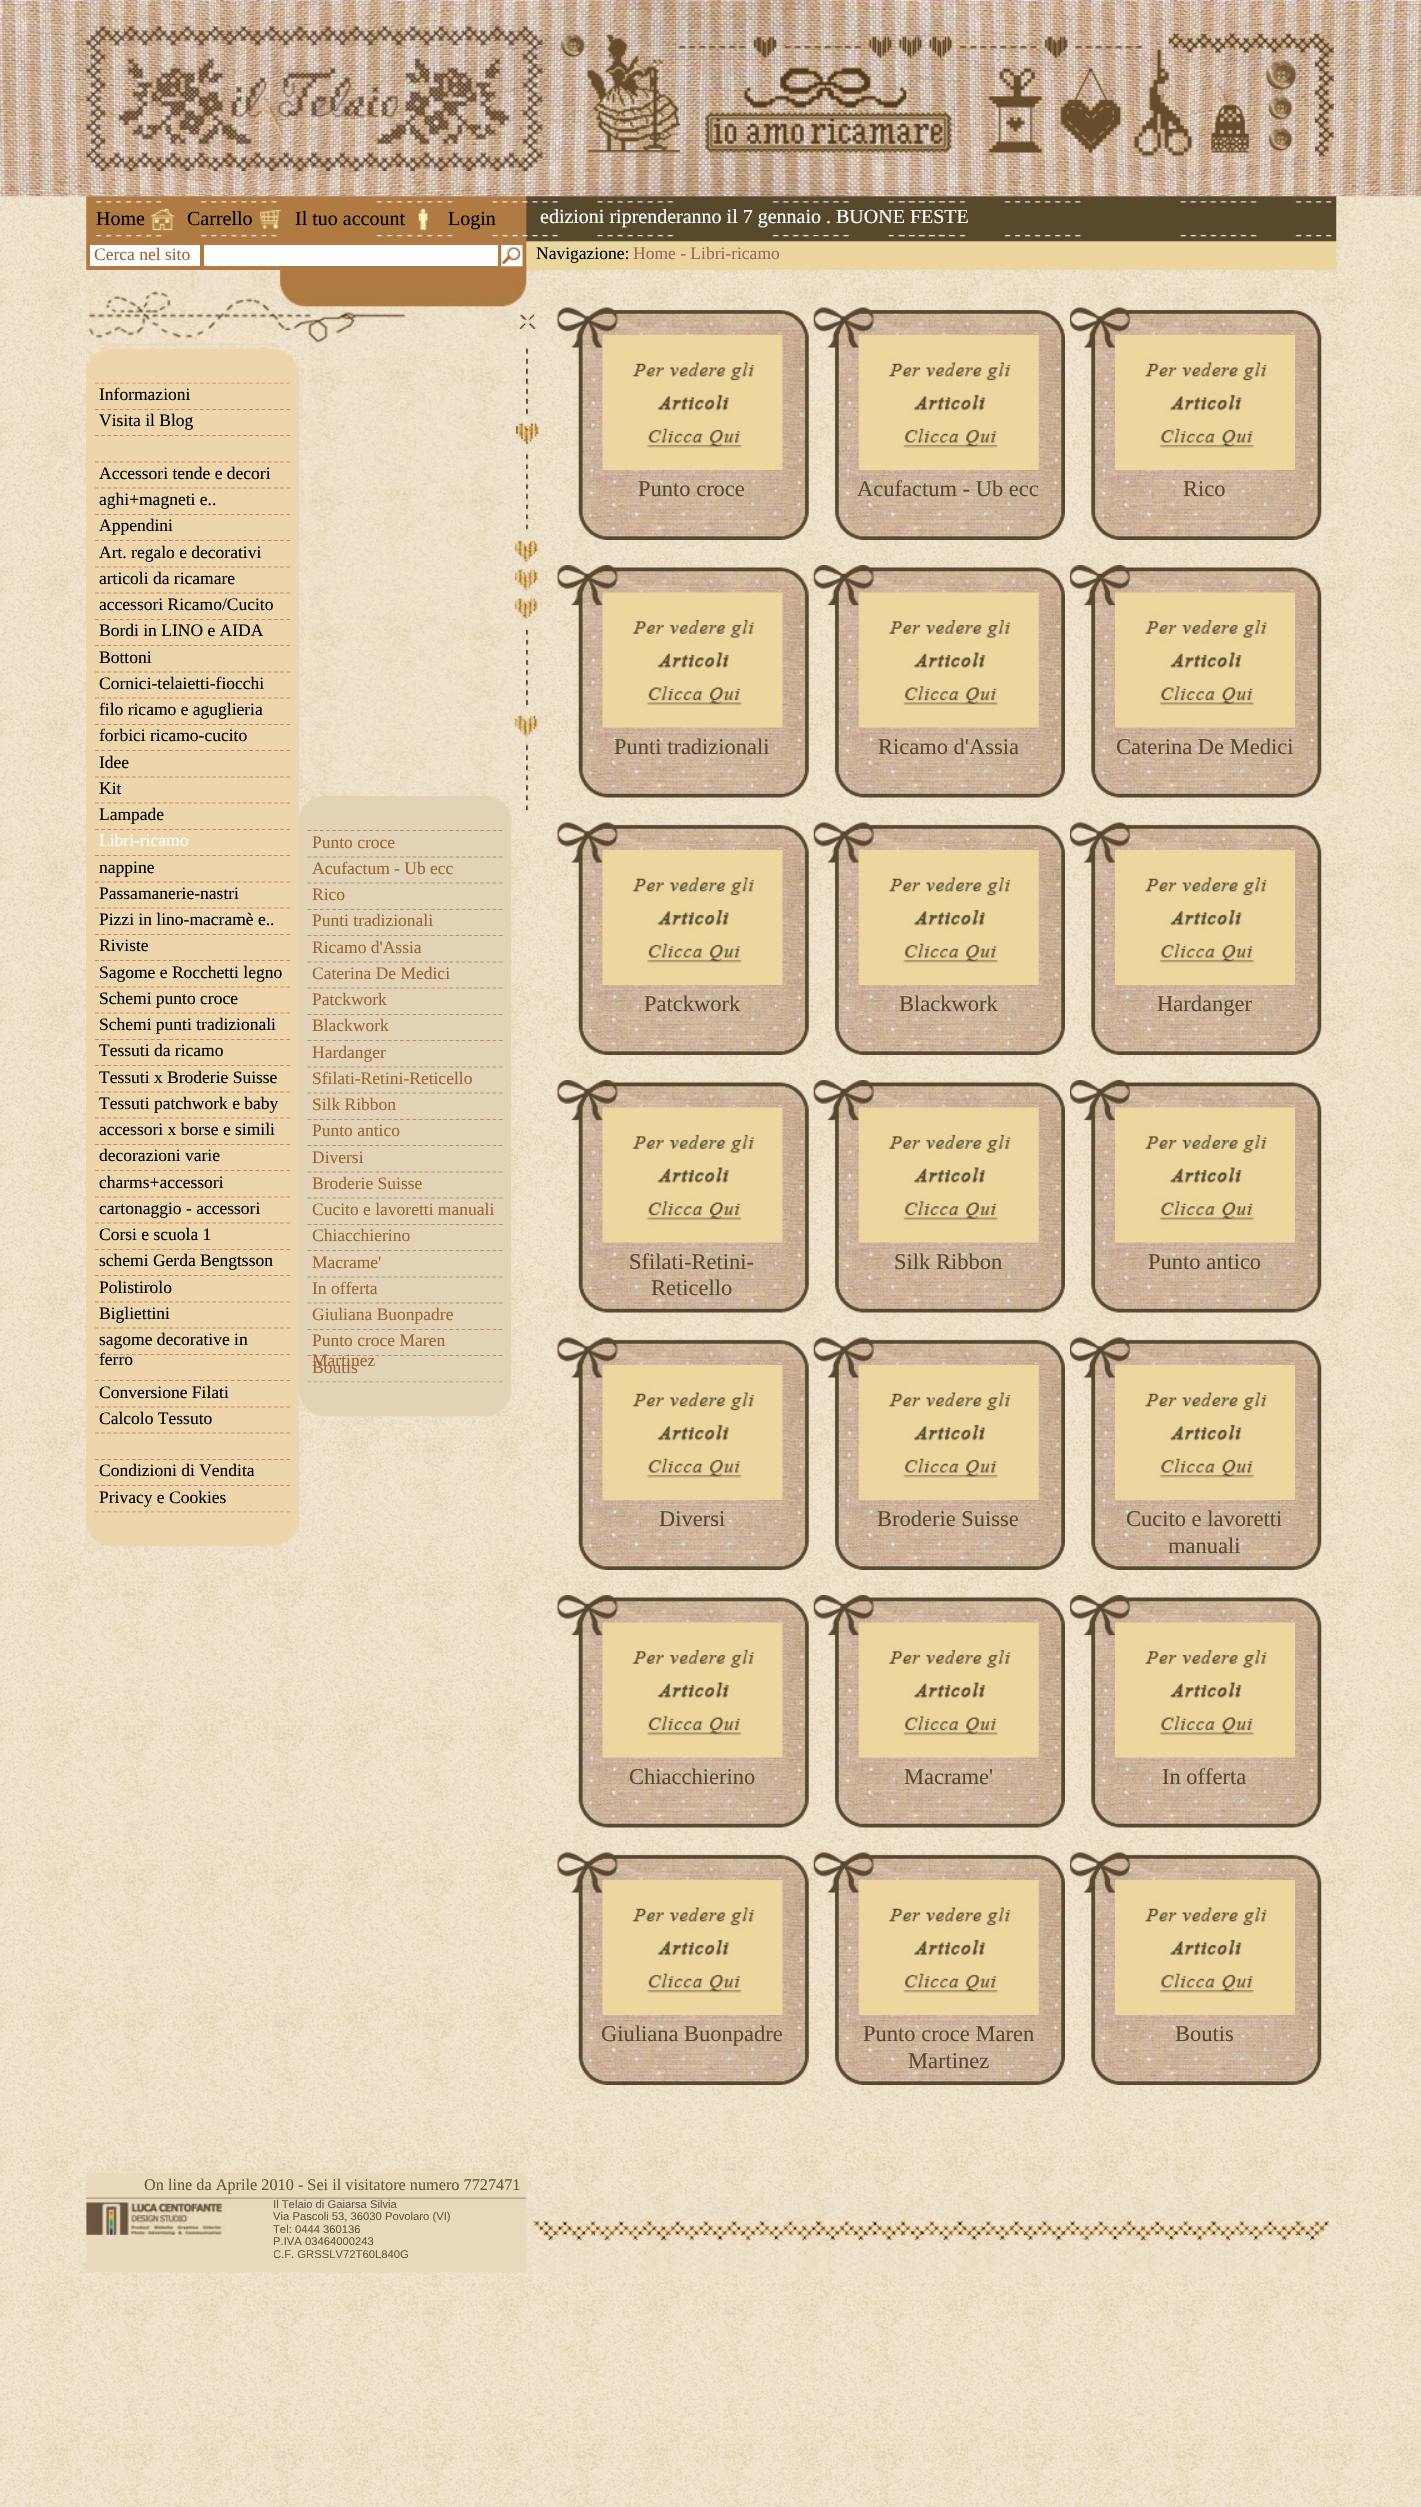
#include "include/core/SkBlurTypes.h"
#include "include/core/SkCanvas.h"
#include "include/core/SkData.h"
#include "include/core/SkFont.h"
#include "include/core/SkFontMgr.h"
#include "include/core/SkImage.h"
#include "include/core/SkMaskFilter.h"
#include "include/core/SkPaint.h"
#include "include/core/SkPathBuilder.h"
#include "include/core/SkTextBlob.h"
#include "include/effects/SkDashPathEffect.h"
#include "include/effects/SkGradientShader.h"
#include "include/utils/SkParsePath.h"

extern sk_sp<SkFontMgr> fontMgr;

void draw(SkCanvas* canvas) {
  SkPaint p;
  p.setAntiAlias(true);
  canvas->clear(SK_ColorWHITE);
  canvas->drawImageRect(SkImages::DeferredFromEncodedData(SkData::MakeFromFileName("images/1.png")), SkRect::MakeLTRB(0, 196, 1421, 2507), SkSamplingOptions());
  canvas->drawImageRect(SkImages::DeferredFromEncodedData(SkData::MakeFromFileName("images/2.png")), SkRect::MakeLTRB(0, 0, 1421, 197), SkSamplingOptions());
  canvas->drawImageRect(SkImages::DeferredFromEncodedData(SkData::MakeFromFileName("images/3.png")), SkRect::MakeLTRB(86, 26, 543, 172), SkSamplingOptions());
  canvas->drawImageRect(SkImages::DeferredFromEncodedData(SkData::MakeFromFileName("images/4.png")), SkRect::MakeLTRB(561, 33, 1334, 157), SkSamplingOptions());
  canvas->drawImageRect(SkImages::DeferredFromEncodedData(SkData::MakeFromFileName("images/5.png")), SkRect::MakeLTRB(86, 196, 1337, 270), SkSamplingOptions());
  canvas->drawImageRect(SkImages::DeferredFromEncodedData(SkData::MakeFromFileName("images/6.png")), SkRect::MakeLTRB(150, 208, 175, 231), SkSamplingOptions());
  canvas->drawImageRect(SkImages::DeferredFromEncodedData(SkData::MakeFromFileName("images/7.png")), SkRect::MakeLTRB(259, 209, 282, 229), SkSamplingOptions());
  canvas->drawImageRect(SkImages::DeferredFromEncodedData(SkData::MakeFromFileName("images/8.png")), SkRect::MakeLTRB(418, 208, 428, 231), SkSamplingOptions());
  p.setColor(SK_ColorWHITE);
  canvas->drawRect(SkRect::MakeLTRB(90, 245, 200, 266), p);
  canvas->drawRect(SkRect::MakeLTRB(204, 245, 498, 266), p);
  canvas->drawImageRect(SkImages::DeferredFromEncodedData(SkData::MakeFromFileName("images/9.png")), SkRect::MakeLTRB(501, 245, 523, 267), SkSamplingOptions());
  canvas->drawImageRect(SkImages::DeferredFromEncodedData(SkData::MakeFromFileName("images/10.png")), SkRect::MakeLTRB(86, 270, 543, 813), SkSamplingOptions());
  p.setColor(SkColorSetRGB(237, 214, 171));
  canvas->drawRect(SkRect::MakeLTRB(86, 349, 299, 1546), p);
  p.setStyle(SkPaint::kStroke_Style);
  p.setStrokeWidth(1.2f);
  p.setColor(SkColorSetRGB(198, 135, 108));
  p.setPathEffect(SkDashPathEffect::Make({{3.75f, 2.42f}}, 0));
  canvas->drawPath(SkPathBuilder().moveTo(95, 383).lineTo(290, 383).detach(), p);
  p.setPathEffect(nullptr);
  canvas->drawImageRect(SkImages::DeferredFromEncodedData(SkData::MakeFromFileName("images/11.png")), SkRect::MakeLTRB(86, 348, 299, 383), SkSamplingOptions());
  p.setPathEffect(SkDashPathEffect::Make({{3.75f, 2.42f}}, 0));
  canvas->drawPath(SkPathBuilder().moveTo(95, 409.5f).lineTo(290, 409.5f).detach(), p);
  p.setPathEffect(nullptr);
  p.setPathEffect(SkDashPathEffect::Make({{3.75f, 2.42f}}, 0));
  canvas->drawPath(SkPathBuilder().moveTo(95, 435.5f).lineTo(290, 435.5f).detach(), p);
  p.setPathEffect(nullptr);
  p.setPathEffect(SkDashPathEffect::Make({{3.75f, 2.42f}}, 0));
  canvas->drawPath(SkPathBuilder().moveTo(95, 462).lineTo(290, 462).detach(), p);
  p.setPathEffect(nullptr);
  p.setPathEffect(SkDashPathEffect::Make({{3.75f, 2.42f}}, 0));
  canvas->drawPath(SkPathBuilder().moveTo(95, 488).lineTo(290, 488).detach(), p);
  p.setPathEffect(nullptr);
  p.setPathEffect(SkDashPathEffect::Make({{3.75f, 2.42f}}, 0));
  canvas->drawPath(SkPathBuilder().moveTo(95, 514.5f).lineTo(290, 514.5f).detach(), p);
  p.setPathEffect(nullptr);
  p.setPathEffect(SkDashPathEffect::Make({{3.75f, 2.42f}}, 0));
  canvas->drawPath(SkPathBuilder().moveTo(95, 540.5f).lineTo(290, 540.5f).detach(), p);
  p.setPathEffect(nullptr);
  p.setPathEffect(SkDashPathEffect::Make({{3.75f, 2.42f}}, 0));
  canvas->drawPath(SkPathBuilder().moveTo(95, 567).lineTo(290, 567).detach(), p);
  p.setPathEffect(nullptr);
  p.setPathEffect(SkDashPathEffect::Make({{3.75f, 2.42f}}, 0));
  canvas->drawPath(SkPathBuilder().moveTo(95, 593).lineTo(290, 593).detach(), p);
  p.setPathEffect(nullptr);
  p.setPathEffect(SkDashPathEffect::Make({{3.75f, 2.42f}}, 0));
  canvas->drawPath(SkPathBuilder().moveTo(95, 619.5f).lineTo(290, 619.5f).detach(), p);
  p.setPathEffect(nullptr);
  p.setPathEffect(SkDashPathEffect::Make({{3.75f, 2.42f}}, 0));
  canvas->drawPath(SkPathBuilder().moveTo(95, 645.5f).lineTo(290, 645.5f).detach(), p);
  p.setPathEffect(nullptr);
  p.setPathEffect(SkDashPathEffect::Make({{3.75f, 2.42f}}, 0));
  canvas->drawPath(SkPathBuilder().moveTo(95, 672).lineTo(290, 672).detach(), p);
  p.setPathEffect(nullptr);
  p.setPathEffect(SkDashPathEffect::Make({{3.75f, 2.42f}}, 0));
  canvas->drawPath(SkPathBuilder().moveTo(95, 698).lineTo(290, 698).detach(), p);
  p.setPathEffect(nullptr);
  p.setPathEffect(SkDashPathEffect::Make({{3.75f, 2.42f}}, 0));
  canvas->drawPath(SkPathBuilder().moveTo(95, 724.5f).lineTo(290, 724.5f).detach(), p);
  p.setPathEffect(nullptr);
  p.setPathEffect(SkDashPathEffect::Make({{3.75f, 2.42f}}, 0));
  canvas->drawPath(SkPathBuilder().moveTo(95, 750.5f).lineTo(290, 750.5f).detach(), p);
  p.setPathEffect(nullptr);
  p.setPathEffect(SkDashPathEffect::Make({{3.75f, 2.42f}}, 0));
  canvas->drawPath(SkPathBuilder().moveTo(95, 777).lineTo(290, 777).detach(), p);
  p.setPathEffect(nullptr);
  p.setPathEffect(SkDashPathEffect::Make({{3.75f, 2.42f}}, 0));
  canvas->drawPath(SkPathBuilder().moveTo(95, 803).lineTo(290, 803).detach(), p);
  p.setPathEffect(nullptr);
  p.setPathEffect(SkDashPathEffect::Make({{3.75f, 2.42f}}, 0));
  canvas->drawPath(SkPathBuilder().moveTo(95, 829.5f).lineTo(290, 829.5f).detach(), p);
  p.setPathEffect(nullptr);
  p.setPathEffect(SkDashPathEffect::Make({{3.75f, 2.42f}}, 0));
  canvas->drawPath(SkPathBuilder().moveTo(95, 855.5f).lineTo(290, 855.5f).detach(), p);
  p.setPathEffect(nullptr);
  p.setStyle(SkPaint::kFill_Style);
  p.setColor(SkColorSetRGB(226, 211, 182));
  canvas->drawRect(SkRect::MakeLTRB(299, 796, 511, 1383), p);
  p.setStyle(SkPaint::kStroke_Style);
  p.setColor(SkColorSetRGB(198, 135, 108));
  p.setPathEffect(SkDashPathEffect::Make({{3.75f, 2.42f}}, 0));
  canvas->drawPath(SkPathBuilder().moveTo(307.5f, 830.5f).lineTo(502.5f, 830.5f).detach(), p);
  p.setPathEffect(nullptr);
  canvas->drawImageRect(SkImages::DeferredFromEncodedData(SkData::MakeFromFileName("images/12.png")), SkRect::MakeLTRB(298, 796, 512, 830), SkSamplingOptions());
  p.setColor(SkColorSetRGB(180, 141, 123));
  p.setPathEffect(SkDashPathEffect::Make({{3.75f, 2.42f}}, 0));
  canvas->drawPath(SkPathBuilder().moveTo(307.5f, 857).lineTo(502.5f, 857).detach(), p);
  p.setPathEffect(nullptr);
  p.setPathEffect(SkDashPathEffect::Make({{3.75f, 2.42f}}, 0));
  canvas->drawPath(SkPathBuilder().moveTo(307.5f, 883).lineTo(502.5f, 883).detach(), p);
  p.setPathEffect(nullptr);
  p.setPathEffect(SkDashPathEffect::Make({{3.75f, 2.42f}}, 0));
  canvas->drawPath(SkPathBuilder().moveTo(307.5f, 909.5f).lineTo(502.5f, 909.5f).detach(), p);
  p.setPathEffect(nullptr);
  p.setPathEffect(SkDashPathEffect::Make({{3.75f, 2.42f}}, 0));
  canvas->drawPath(SkPathBuilder().moveTo(307.5f, 935.5f).lineTo(502.5f, 935.5f).detach(), p);
  p.setPathEffect(nullptr);
  p.setPathEffect(SkDashPathEffect::Make({{3.75f, 2.42f}}, 0));
  canvas->drawPath(SkPathBuilder().moveTo(307.5f, 962).lineTo(502.5f, 962).detach(), p);
  p.setPathEffect(nullptr);
  p.setPathEffect(SkDashPathEffect::Make({{3.75f, 2.42f}}, 0));
  canvas->drawPath(SkPathBuilder().moveTo(307.5f, 988).lineTo(502.5f, 988).detach(), p);
  p.setPathEffect(nullptr);
  p.setPathEffect(SkDashPathEffect::Make({{3.75f, 2.42f}}, 0));
  canvas->drawPath(SkPathBuilder().moveTo(307.5f, 1014.5f).lineTo(502.5f, 1014.5f).detach(), p);
  p.setPathEffect(nullptr);
  p.setPathEffect(SkDashPathEffect::Make({{3.75f, 2.42f}}, 0));
  canvas->drawPath(SkPathBuilder().moveTo(307.5f, 1040.5f).lineTo(502.5f, 1040.5f).detach(), p);
  p.setPathEffect(nullptr);
  p.setPathEffect(SkDashPathEffect::Make({{3.75f, 2.42f}}, 0));
  canvas->drawPath(SkPathBuilder().moveTo(307.5f, 1067).lineTo(502.5f, 1067).detach(), p);
  p.setPathEffect(nullptr);
  p.setPathEffect(SkDashPathEffect::Make({{3.75f, 2.42f}}, 0));
  canvas->drawPath(SkPathBuilder().moveTo(307.5f, 1093).lineTo(502.5f, 1093).detach(), p);
  p.setPathEffect(nullptr);
  p.setPathEffect(SkDashPathEffect::Make({{3.75f, 2.42f}}, 0));
  canvas->drawPath(SkPathBuilder().moveTo(307.5f, 1119.5f).lineTo(502.5f, 1119.5f).detach(), p);
  p.setPathEffect(nullptr);
  p.setPathEffect(SkDashPathEffect::Make({{3.75f, 2.42f}}, 0));
  canvas->drawPath(SkPathBuilder().moveTo(307.5f, 1145.5f).lineTo(502.5f, 1145.5f).detach(), p);
  p.setPathEffect(nullptr);
  p.setPathEffect(SkDashPathEffect::Make({{3.75f, 2.42f}}, 0));
  canvas->drawPath(SkPathBuilder().moveTo(307.5f, 1172).lineTo(502.5f, 1172).detach(), p);
  p.setPathEffect(nullptr);
  p.setPathEffect(SkDashPathEffect::Make({{3.75f, 2.42f}}, 0));
  canvas->drawPath(SkPathBuilder().moveTo(307.5f, 1198).lineTo(502.5f, 1198).detach(), p);
  p.setPathEffect(nullptr);
  p.setPathEffect(SkDashPathEffect::Make({{3.75f, 2.42f}}, 0));
  canvas->drawPath(SkPathBuilder().moveTo(307.5f, 1224.5f).lineTo(502.5f, 1224.5f).detach(), p);
  p.setPathEffect(nullptr);
  p.setPathEffect(SkDashPathEffect::Make({{3.75f, 2.42f}}, 0));
  canvas->drawPath(SkPathBuilder().moveTo(307.5f, 1250.5f).lineTo(502.5f, 1250.5f).detach(), p);
  p.setPathEffect(nullptr);
  p.setPathEffect(SkDashPathEffect::Make({{3.75f, 2.42f}}, 0));
  canvas->drawPath(SkPathBuilder().moveTo(307.5f, 1277).lineTo(502.5f, 1277).detach(), p);
  p.setPathEffect(nullptr);
  p.setPathEffect(SkDashPathEffect::Make({{3.75f, 2.42f}}, 0));
  canvas->drawPath(SkPathBuilder().moveTo(307.5f, 1303).lineTo(502.5f, 1303).detach(), p);
  p.setPathEffect(nullptr);
  p.setPathEffect(SkDashPathEffect::Make({{3.75f, 2.42f}}, 0));
  canvas->drawPath(SkPathBuilder().moveTo(307.5f, 1329.5f).lineTo(502.5f, 1329.5f).detach(), p);
  p.setPathEffect(nullptr);
  p.setPathEffect(SkDashPathEffect::Make({{3.75f, 2.42f}}, 0));
  canvas->drawPath(SkPathBuilder().moveTo(307.5f, 1355.5f).lineTo(502.5f, 1355.5f).detach(), p);
  p.setPathEffect(nullptr);
  p.setPathEffect(SkDashPathEffect::Make({{3.75f, 2.42f}}, 0));
  canvas->drawPath(SkPathBuilder().moveTo(307.5f, 1382).lineTo(502.5f, 1382).detach(), p);
  p.setPathEffect(nullptr);
  canvas->drawImageRect(SkImages::DeferredFromEncodedData(SkData::MakeFromFileName("images/13.png")), SkRect::MakeLTRB(298, 1382, 512, 1417), SkSamplingOptions());
  p.setColor(SkColorSetRGB(198, 135, 108));
  p.setPathEffect(SkDashPathEffect::Make({{3.75f, 2.42f}}, 0));
  canvas->drawPath(SkPathBuilder().moveTo(95, 882).lineTo(290, 882).detach(), p);
  p.setPathEffect(nullptr);
  p.setPathEffect(SkDashPathEffect::Make({{3.75f, 2.42f}}, 0));
  canvas->drawPath(SkPathBuilder().moveTo(95, 908).lineTo(290, 908).detach(), p);
  p.setPathEffect(nullptr);
  p.setPathEffect(SkDashPathEffect::Make({{3.75f, 2.42f}}, 0));
  canvas->drawPath(SkPathBuilder().moveTo(95, 934.5f).lineTo(290, 934.5f).detach(), p);
  p.setPathEffect(nullptr);
  p.setPathEffect(SkDashPathEffect::Make({{3.75f, 2.42f}}, 0));
  canvas->drawPath(SkPathBuilder().moveTo(95, 960.5f).lineTo(290, 960.5f).detach(), p);
  p.setPathEffect(nullptr);
  p.setPathEffect(SkDashPathEffect::Make({{3.75f, 2.42f}}, 0));
  canvas->drawPath(SkPathBuilder().moveTo(95, 987).lineTo(290, 987).detach(), p);
  p.setPathEffect(nullptr);
  p.setPathEffect(SkDashPathEffect::Make({{3.75f, 2.42f}}, 0));
  canvas->drawPath(SkPathBuilder().moveTo(95, 1013).lineTo(290, 1013).detach(), p);
  p.setPathEffect(nullptr);
  p.setPathEffect(SkDashPathEffect::Make({{3.75f, 2.42f}}, 0));
  canvas->drawPath(SkPathBuilder().moveTo(95, 1039.5f).lineTo(290, 1039.5f).detach(), p);
  p.setPathEffect(nullptr);
  p.setPathEffect(SkDashPathEffect::Make({{3.75f, 2.42f}}, 0));
  canvas->drawPath(SkPathBuilder().moveTo(95, 1065.5f).lineTo(290, 1065.5f).detach(), p);
  p.setPathEffect(nullptr);
  p.setPathEffect(SkDashPathEffect::Make({{3.75f, 2.42f}}, 0));
  canvas->drawPath(SkPathBuilder().moveTo(95, 1092).lineTo(290, 1092).detach(), p);
  p.setPathEffect(nullptr);
  p.setPathEffect(SkDashPathEffect::Make({{3.75f, 2.42f}}, 0));
  canvas->drawPath(SkPathBuilder().moveTo(95, 1118).lineTo(290, 1118).detach(), p);
  p.setPathEffect(nullptr);
  p.setPathEffect(SkDashPathEffect::Make({{3.75f, 2.42f}}, 0));
  canvas->drawPath(SkPathBuilder().moveTo(95, 1144.5f).lineTo(290, 1144.5f).detach(), p);
  p.setPathEffect(nullptr);
  p.setPathEffect(SkDashPathEffect::Make({{3.75f, 2.42f}}, 0));
  canvas->drawPath(SkPathBuilder().moveTo(95, 1170.5f).lineTo(290, 1170.5f).detach(), p);
  p.setPathEffect(nullptr);
  p.setPathEffect(SkDashPathEffect::Make({{3.75f, 2.42f}}, 0));
  canvas->drawPath(SkPathBuilder().moveTo(95, 1197).lineTo(290, 1197).detach(), p);
  p.setPathEffect(nullptr);
  p.setPathEffect(SkDashPathEffect::Make({{3.75f, 2.42f}}, 0));
  canvas->drawPath(SkPathBuilder().moveTo(95, 1223).lineTo(290, 1223).detach(), p);
  p.setPathEffect(nullptr);
  p.setPathEffect(SkDashPathEffect::Make({{3.75f, 2.42f}}, 0));
  canvas->drawPath(SkPathBuilder().moveTo(95, 1249.5f).lineTo(290, 1249.5f).detach(), p);
  p.setPathEffect(nullptr);
  p.setPathEffect(SkDashPathEffect::Make({{3.75f, 2.42f}}, 0));
  canvas->drawPath(SkPathBuilder().moveTo(95, 1275.5f).lineTo(290, 1275.5f).detach(), p);
  p.setPathEffect(nullptr);
  p.setPathEffect(SkDashPathEffect::Make({{3.75f, 2.42f}}, 0));
  canvas->drawPath(SkPathBuilder().moveTo(95, 1302).lineTo(290, 1302).detach(), p);
  p.setPathEffect(nullptr);
  p.setPathEffect(SkDashPathEffect::Make({{3.75f, 2.42f}}, 0));
  canvas->drawPath(SkPathBuilder().moveTo(95, 1328).lineTo(290, 1328).detach(), p);
  p.setPathEffect(nullptr);
  p.setPathEffect(SkDashPathEffect::Make({{3.75f, 2.42f}}, 0));
  canvas->drawPath(SkPathBuilder().moveTo(95, 1354.5f).lineTo(290, 1354.5f).detach(), p);
  p.setPathEffect(nullptr);
  p.setPathEffect(SkDashPathEffect::Make({{3.75f, 2.42f}}, 0));
  canvas->drawPath(SkPathBuilder().moveTo(95, 1380.5f).lineTo(290, 1380.5f).detach(), p);
  p.setPathEffect(nullptr);
  p.setPathEffect(SkDashPathEffect::Make({{3.75f, 2.42f}}, 0));
  canvas->drawPath(SkPathBuilder().moveTo(95, 1407).lineTo(290, 1407).detach(), p);
  p.setPathEffect(nullptr);
  p.setPathEffect(SkDashPathEffect::Make({{3.75f, 2.42f}}, 0));
  canvas->drawPath(SkPathBuilder().moveTo(95, 1433).lineTo(290, 1433).detach(), p);
  p.setPathEffect(nullptr);
  p.setPathEffect(SkDashPathEffect::Make({{3.75f, 2.42f}}, 0));
  canvas->drawPath(SkPathBuilder().moveTo(95, 1459.5f).lineTo(290, 1459.5f).detach(), p);
  p.setPathEffect(nullptr);
  p.setPathEffect(SkDashPathEffect::Make({{3.75f, 2.42f}}, 0));
  canvas->drawPath(SkPathBuilder().moveTo(95, 1485.5f).lineTo(290, 1485.5f).detach(), p);
  p.setPathEffect(nullptr);
  p.setPathEffect(SkDashPathEffect::Make({{3.75f, 2.42f}}, 0));
  canvas->drawPath(SkPathBuilder().moveTo(95, 1512).lineTo(290, 1512).detach(), p);
  p.setPathEffect(nullptr);
  canvas->drawImageRect(SkImages::DeferredFromEncodedData(SkData::MakeFromFileName("images/14.png")), SkRect::MakeLTRB(86, 1512, 299, 1547), SkSamplingOptions());
  canvas->drawImageRect(SkImages::DeferredFromEncodedData(SkData::MakeFromFileName("images/15.png")), SkRect::MakeLTRB(557, 307, 809, 540), SkSamplingOptions());
  canvas->drawImageRect(SkImages::DeferredFromEncodedData(SkData::MakeFromFileName("images/16.png")), SkRect::MakeLTRB(602, 335, 783, 470), SkSamplingOptions());
  canvas->drawImageRect(SkImages::DeferredFromEncodedData(SkData::MakeFromFileName("images/17.png")), SkRect::MakeLTRB(813, 307, 1065, 540), SkSamplingOptions());
  canvas->drawImageRect(SkImages::DeferredFromEncodedData(SkData::MakeFromFileName("images/18.png")), SkRect::MakeLTRB(858, 335, 1039, 470), SkSamplingOptions());
  canvas->drawImageRect(SkImages::DeferredFromEncodedData(SkData::MakeFromFileName("images/19.png")), SkRect::MakeLTRB(1070, 307, 1322, 540), SkSamplingOptions());
  canvas->drawImageRect(SkImages::DeferredFromEncodedData(SkData::MakeFromFileName("images/20.png")), SkRect::MakeLTRB(1115, 335, 1295, 470), SkSamplingOptions());
  canvas->drawImageRect(SkImages::DeferredFromEncodedData(SkData::MakeFromFileName("images/21.png")), SkRect::MakeLTRB(557, 565, 809, 798), SkSamplingOptions());
  canvas->drawImageRect(SkImages::DeferredFromEncodedData(SkData::MakeFromFileName("images/22.png")), SkRect::MakeLTRB(602, 592, 783, 728), SkSamplingOptions());
  canvas->drawImageRect(SkImages::DeferredFromEncodedData(SkData::MakeFromFileName("images/23.png")), SkRect::MakeLTRB(813, 565, 1065, 798), SkSamplingOptions());
  canvas->drawImageRect(SkImages::DeferredFromEncodedData(SkData::MakeFromFileName("images/24.png")), SkRect::MakeLTRB(858, 592, 1039, 728), SkSamplingOptions());
  canvas->drawImageRect(SkImages::DeferredFromEncodedData(SkData::MakeFromFileName("images/25.png")), SkRect::MakeLTRB(1070, 565, 1322, 798), SkSamplingOptions());
  canvas->drawImageRect(SkImages::DeferredFromEncodedData(SkData::MakeFromFileName("images/26.png")), SkRect::MakeLTRB(1115, 592, 1295, 728), SkSamplingOptions());
  canvas->drawImageRect(SkImages::DeferredFromEncodedData(SkData::MakeFromFileName("images/27.png")), SkRect::MakeLTRB(557, 822, 809, 1055), SkSamplingOptions());
  canvas->drawImageRect(SkImages::DeferredFromEncodedData(SkData::MakeFromFileName("images/16.png")), SkRect::MakeLTRB(602, 850, 783, 985), SkSamplingOptions());
  canvas->drawImageRect(SkImages::DeferredFromEncodedData(SkData::MakeFromFileName("images/28.png")), SkRect::MakeLTRB(813, 822, 1065, 1055), SkSamplingOptions());
  canvas->drawImageRect(SkImages::DeferredFromEncodedData(SkData::MakeFromFileName("images/18.png")), SkRect::MakeLTRB(858, 850, 1039, 985), SkSamplingOptions());
  canvas->drawImageRect(SkImages::DeferredFromEncodedData(SkData::MakeFromFileName("images/29.png")), SkRect::MakeLTRB(1070, 822, 1322, 1055), SkSamplingOptions());
  canvas->drawImageRect(SkImages::DeferredFromEncodedData(SkData::MakeFromFileName("images/20.png")), SkRect::MakeLTRB(1115, 850, 1295, 985), SkSamplingOptions());
  canvas->drawImageRect(SkImages::DeferredFromEncodedData(SkData::MakeFromFileName("images/30.png")), SkRect::MakeLTRB(557, 1080, 809, 1313), SkSamplingOptions());
  canvas->drawImageRect(SkImages::DeferredFromEncodedData(SkData::MakeFromFileName("images/31.png")), SkRect::MakeLTRB(602, 1107, 783, 1243), SkSamplingOptions());
  canvas->drawImageRect(SkImages::DeferredFromEncodedData(SkData::MakeFromFileName("images/32.png")), SkRect::MakeLTRB(813, 1080, 1065, 1313), SkSamplingOptions());
  canvas->drawImageRect(SkImages::DeferredFromEncodedData(SkData::MakeFromFileName("images/33.png")), SkRect::MakeLTRB(858, 1107, 1039, 1243), SkSamplingOptions());
  canvas->drawImageRect(SkImages::DeferredFromEncodedData(SkData::MakeFromFileName("images/34.png")), SkRect::MakeLTRB(1070, 1080, 1322, 1313), SkSamplingOptions());
  canvas->drawImageRect(SkImages::DeferredFromEncodedData(SkData::MakeFromFileName("images/35.png")), SkRect::MakeLTRB(1115, 1107, 1295, 1243), SkSamplingOptions());
  canvas->drawImageRect(SkImages::DeferredFromEncodedData(SkData::MakeFromFileName("images/36.png")), SkRect::MakeLTRB(557, 1337, 809, 1570), SkSamplingOptions());
  canvas->drawImageRect(SkImages::DeferredFromEncodedData(SkData::MakeFromFileName("images/16.png")), SkRect::MakeLTRB(602, 1365, 783, 1500), SkSamplingOptions());
  canvas->drawImageRect(SkImages::DeferredFromEncodedData(SkData::MakeFromFileName("images/37.png")), SkRect::MakeLTRB(813, 1337, 1065, 1570), SkSamplingOptions());
  canvas->drawImageRect(SkImages::DeferredFromEncodedData(SkData::MakeFromFileName("images/18.png")), SkRect::MakeLTRB(858, 1365, 1039, 1500), SkSamplingOptions());
  canvas->drawImageRect(SkImages::DeferredFromEncodedData(SkData::MakeFromFileName("images/38.png")), SkRect::MakeLTRB(1070, 1337, 1322, 1570), SkSamplingOptions());
  canvas->drawImageRect(SkImages::DeferredFromEncodedData(SkData::MakeFromFileName("images/20.png")), SkRect::MakeLTRB(1115, 1365, 1295, 1500), SkSamplingOptions());
  canvas->drawImageRect(SkImages::DeferredFromEncodedData(SkData::MakeFromFileName("images/39.png")), SkRect::MakeLTRB(557, 1595, 809, 1828), SkSamplingOptions());
  canvas->drawImageRect(SkImages::DeferredFromEncodedData(SkData::MakeFromFileName("images/40.png")), SkRect::MakeLTRB(602, 1622, 783, 1758), SkSamplingOptions());
  canvas->drawImageRect(SkImages::DeferredFromEncodedData(SkData::MakeFromFileName("images/41.png")), SkRect::MakeLTRB(813, 1595, 1065, 1828), SkSamplingOptions());
  canvas->drawImageRect(SkImages::DeferredFromEncodedData(SkData::MakeFromFileName("images/42.png")), SkRect::MakeLTRB(858, 1622, 1039, 1758), SkSamplingOptions());
  canvas->drawImageRect(SkImages::DeferredFromEncodedData(SkData::MakeFromFileName("images/43.png")), SkRect::MakeLTRB(1070, 1595, 1322, 1828), SkSamplingOptions());
  canvas->drawImageRect(SkImages::DeferredFromEncodedData(SkData::MakeFromFileName("images/44.png")), SkRect::MakeLTRB(1115, 1622, 1295, 1758), SkSamplingOptions());
  canvas->drawImageRect(SkImages::DeferredFromEncodedData(SkData::MakeFromFileName("images/45.png")), SkRect::MakeLTRB(557, 1852, 809, 2085), SkSamplingOptions());
  canvas->drawImageRect(SkImages::DeferredFromEncodedData(SkData::MakeFromFileName("images/46.png")), SkRect::MakeLTRB(602, 1880, 783, 2015), SkSamplingOptions());
  canvas->drawImageRect(SkImages::DeferredFromEncodedData(SkData::MakeFromFileName("images/47.png")), SkRect::MakeLTRB(813, 1852, 1065, 2085), SkSamplingOptions());
  canvas->drawImageRect(SkImages::DeferredFromEncodedData(SkData::MakeFromFileName("images/48.png")), SkRect::MakeLTRB(858, 1880, 1039, 2015), SkSamplingOptions());
  canvas->drawImageRect(SkImages::DeferredFromEncodedData(SkData::MakeFromFileName("images/49.png")), SkRect::MakeLTRB(1070, 1852, 1322, 2085), SkSamplingOptions());
  canvas->drawImageRect(SkImages::DeferredFromEncodedData(SkData::MakeFromFileName("images/20.png")), SkRect::MakeLTRB(1115, 1880, 1295, 2015), SkSamplingOptions());
  p.setStyle(SkPaint::kFill_Style);
  p.setColor(SkColorSetRGB(233, 218, 189));
  canvas->drawRect(SkRect::MakeLTRB(86, 2173, 526, 2198), p);
  canvas->drawImageRect(SkImages::DeferredFromEncodedData(SkData::MakeFromFileName("images/50.png")), SkRect::MakeLTRB(86, 2197, 1337, 2273), SkSamplingOptions());
  canvas->drawImageRect(SkImages::DeferredFromEncodedData(SkData::MakeFromFileName("images/51.png")), SkRect::MakeLTRB(86, 2202, 226, 2235), SkSamplingOptions());
  SkFont font1(fontMgr->matchFamilyStyle("Liberation Serif", SkFontStyle::Normal()), 20);
  font1.setSubpixel(true);
  p.setColor(SK_ColorBLACK);
  canvas->drawString("Home", 96, 225, font1, p);
  canvas->drawString("Carrello", 187, 225, font1, p);
  canvas->drawString("Il tuo account", 295, 225, font1, p);
  canvas->drawString("Login", 448, 225, font1, p);
  p.setColor(SK_ColorWHITE);
  canvas->drawString("edizioni riprenderanno il 7 gennaio . BUONE FESTE", 540, 223, font1, p);
  SkFont font2(fontMgr->matchFamilyStyle("Liberation Serif", SkFontStyle::Normal()), 17.5f);
  font2.setSubpixel(true);
  p.setColor(SkColorSetRGB(153, 101, 51));
  canvas->drawString("Cerca nel sito", 94, 260, font2, p);
  p.setColor(SK_ColorBLACK);
  canvas->drawString("Navigazione:", 536, 259, font2, p);
  p.setColor(SkColorSetRGB(153, 101, 101));
  canvas->drawString("Home - Libri-ricamo", 633, 259, font2, p);
  p.setColor(SK_ColorBLACK);
  canvas->drawString("Informazioni", 99, 400, font2, p);
  canvas->drawString("Visita il Blog", 99, 426, font2, p);
  canvas->drawString("Accessori tende e decori", 99, 479, font2, p);
  canvas->drawString("aghi+magneti e..", 99, 505, font2, p);
  canvas->drawString("Appendini", 99, 531, font2, p);
  canvas->drawString("Art. regalo e decorativi", 99, 558, font2, p);
  canvas->drawString("articoli da ricamare", 99, 584, font2, p);
  canvas->drawString("accessori Ricamo/Cucito", 99, 610, font2, p);
  canvas->drawString("Bordi in LINO e AIDA", 99, 636, font2, p);
  canvas->drawString("Bottoni", 99, 663, font2, p);
  canvas->drawString("Cornici-telaietti-fiocchi", 99, 689, font2, p);
  canvas->drawString("filo ricamo e aguglieria", 99, 715, font2, p);
  canvas->drawString("forbici ricamo-cucito", 99, 741, font2, p);
  canvas->drawString("Idee", 99, 768, font2, p);
  canvas->drawString("Kit", 99, 794, font2, p);
  canvas->drawString("Lampade", 99, 820, font2, p);
  p.setColor(SK_ColorWHITE);
  canvas->drawString("Libri-ricamo", 99, 846, font2, p);
  p.setColor(SkColorSetRGB(153, 101, 51));
  canvas->drawString("Punto croce", 312, 848, font2, p);
  canvas->drawString("Acufactum - Ub ecc", 312, 874, font2, p);
  canvas->drawString("Rico", 312, 900, font2, p);
  canvas->drawString("Punti tradizionali", 312, 926, font2, p);
  canvas->drawString("Ricamo d'Assia", 312, 953, font2, p);
  canvas->drawString("Caterina De Medici", 312, 979, font2, p);
  canvas->drawString("Patckwork", 312, 1005, font2, p);
  canvas->drawString("Blackwork", 312, 1031, font2, p);
  canvas->drawString("Hardanger", 312, 1058, font2, p);
  canvas->drawString("Sfilati-Retini-Reticello", 312, 1084, font2, p);
  canvas->drawString("Silk Ribbon", 312, 1110, font2, p);
  canvas->drawString("Punto antico", 312, 1136, font2, p);
  canvas->drawString("Diversi", 312, 1163, font2, p);
  canvas->drawString("Broderie Suisse", 312, 1189, font2, p);
  canvas->drawString("Cucito e lavoretti manuali", 312, 1215, font2, p);
  canvas->drawString("Chiacchierino", 312, 1241, font2, p);
  canvas->drawString("Macrame'", 312, 1268, font2, p);
  canvas->drawString("In offerta", 312, 1294, font2, p);
  canvas->drawString("Giuliana Buonpadre", 312, 1320, font2, p);
  canvas->drawString("Punto croce Maren", 312, 1346, font2, p);
  canvas->drawString("Martinez", 312, 1366, font2, p);
  canvas->drawString("Boutis", 312, 1373, font2, p);
  p.setColor(SK_ColorBLACK);
  canvas->drawString("nappine", 99, 873, font2, p);
  canvas->drawString("Passamanerie-nastri", 99, 899, font2, p);
  canvas->drawString("Pizzi in lino-macramè e..", 99, 925, font2, p);
  canvas->drawString("Riviste", 99, 951, font2, p);
  canvas->drawString("Sagome e Rocchetti legno", 99, 978, font2, p);
  canvas->drawString("Schemi punto croce", 99, 1004, font2, p);
  canvas->drawString("Schemi punti tradizionali", 99, 1030, font2, p);
  canvas->drawString("Tessuti da ricamo", 99, 1056, font2, p);
  canvas->drawString("Tessuti x Broderie Suisse", 99, 1083, font2, p);
  canvas->drawString("Tessuti patchwork e baby", 99, 1109, font2, p);
  canvas->drawString("accessori x borse e simili", 99, 1135, font2, p);
  canvas->drawString("decorazioni varie", 99, 1161, font2, p);
  canvas->drawString("charms+accessori", 99, 1188, font2, p);
  canvas->drawString("cartonaggio - accessori", 99, 1214, font2, p);
  canvas->drawString("Corsi e scuola 1", 99, 1240, font2, p);
  canvas->drawString("schemi Gerda Bengtsson", 99, 1266, font2, p);
  canvas->drawString("Polistirolo", 99, 1293, font2, p);
  canvas->drawString("Bigliettini", 99, 1319, font2, p);
  canvas->drawString("sagome decorative in", 99, 1345, font2, p);
  canvas->drawString("ferro", 99, 1365, font2, p);
  canvas->drawString("Conversione Filati", 99, 1398, font2, p);
  canvas->drawString("Calcolo Tessuto", 99, 1424, font2, p);
  canvas->drawString("Condizioni di Vendita", 99, 1476, font2, p);
  canvas->drawString("Privacy e Cookies", 99, 1503, font2, p);
  SkFont font3(fontMgr->matchFamilyStyle("Liberation Serif", SkFontStyle::Normal()), 22.5f);
  font3.setSubpixel(true);
  p.setColor(SkColorSetRGB(85, 72, 49));
  canvas->drawString("Punto croce", 638, 496, font3, p);
  canvas->drawString("Acufactum - Ub ecc", 857, 496, font3, p);
  canvas->drawString("Rico", 1183, 496, font3, p);
  canvas->drawString("Punti tradizionali", 614, 754, font3, p);
  canvas->drawString("Ricamo d'Assia", 878, 754, font3, p);
  canvas->drawString("Caterina De Medici", 1116, 754, font3, p);
  canvas->drawString("Patckwork", 644, 1011, font3, p);
  canvas->drawString("Blackwork", 899, 1011, font3, p);
  canvas->drawString("Hardanger", 1157, 1011, font3, p);
  canvas->drawString("Sfilati-Retini-", 629, 1269, font3, p);
  canvas->drawString("Reticello", 651, 1295, font3, p);
  canvas->drawString("Silk Ribbon", 894, 1269, font3, p);
  canvas->drawString("Punto antico", 1148, 1269, font3, p);
  canvas->drawString("Diversi", 659, 1526, font3, p);
  canvas->drawString("Broderie Suisse", 877, 1526, font3, p);
  canvas->drawString("Cucito e lavoretti", 1126, 1526, font3, p);
  canvas->drawString("manuali", 1168, 1553, font3, p);
  canvas->drawString("Chiacchierino", 629, 1784, font3, p);
  canvas->drawString("Macrame'", 904, 1784, font3, p);
  canvas->drawString("In offerta", 1162, 1784, font3, p);
  canvas->drawString("Giuliana Buonpadre", 601, 2041, font3, p);
  canvas->drawString("Punto croce Maren", 863, 2041, font3, p);
  canvas->drawString("Martinez", 908, 2068, font3, p);
  canvas->drawString("Boutis", 1175, 2041, font3, p);
  SkFont font4(fontMgr->matchFamilyStyle("Liberation Serif", SkFontStyle::Normal()), 16.25f);
  font4.setSubpixel(true);
  p.setColor(SkColorSetRGB(105, 85, 63));
  canvas->drawString("On line da Aprile 2010 - Sei il visitatore numero 7727471", 144, 2190, font4, p);
  SkFont font5(fontMgr->matchFamilyStyle("Liberation Sans", SkFontStyle::Normal()), 11.25f);
  font5.setSubpixel(true);
  canvas->drawString("Il Telaio di Gaiarsa Silvia", 273, 2208, font5, p);
  canvas->drawString("Via Pascoli 53, 36030 Povolaro (VI)", 273, 2220, font5, p);
  canvas->drawString("Tel: 0444 360136", 273, 2233, font5, p);
  canvas->drawString("P.IVA 03464000243", 273, 2245, font5, p);
  canvas->save();
  canvas->clipRect(SkRect::MakeLTRB(274, 2198, 524, 2260));
  canvas->drawString("C.F. GRSSLV72T60L840G", 273, 2258, font5, p);
  canvas->restore();
}
